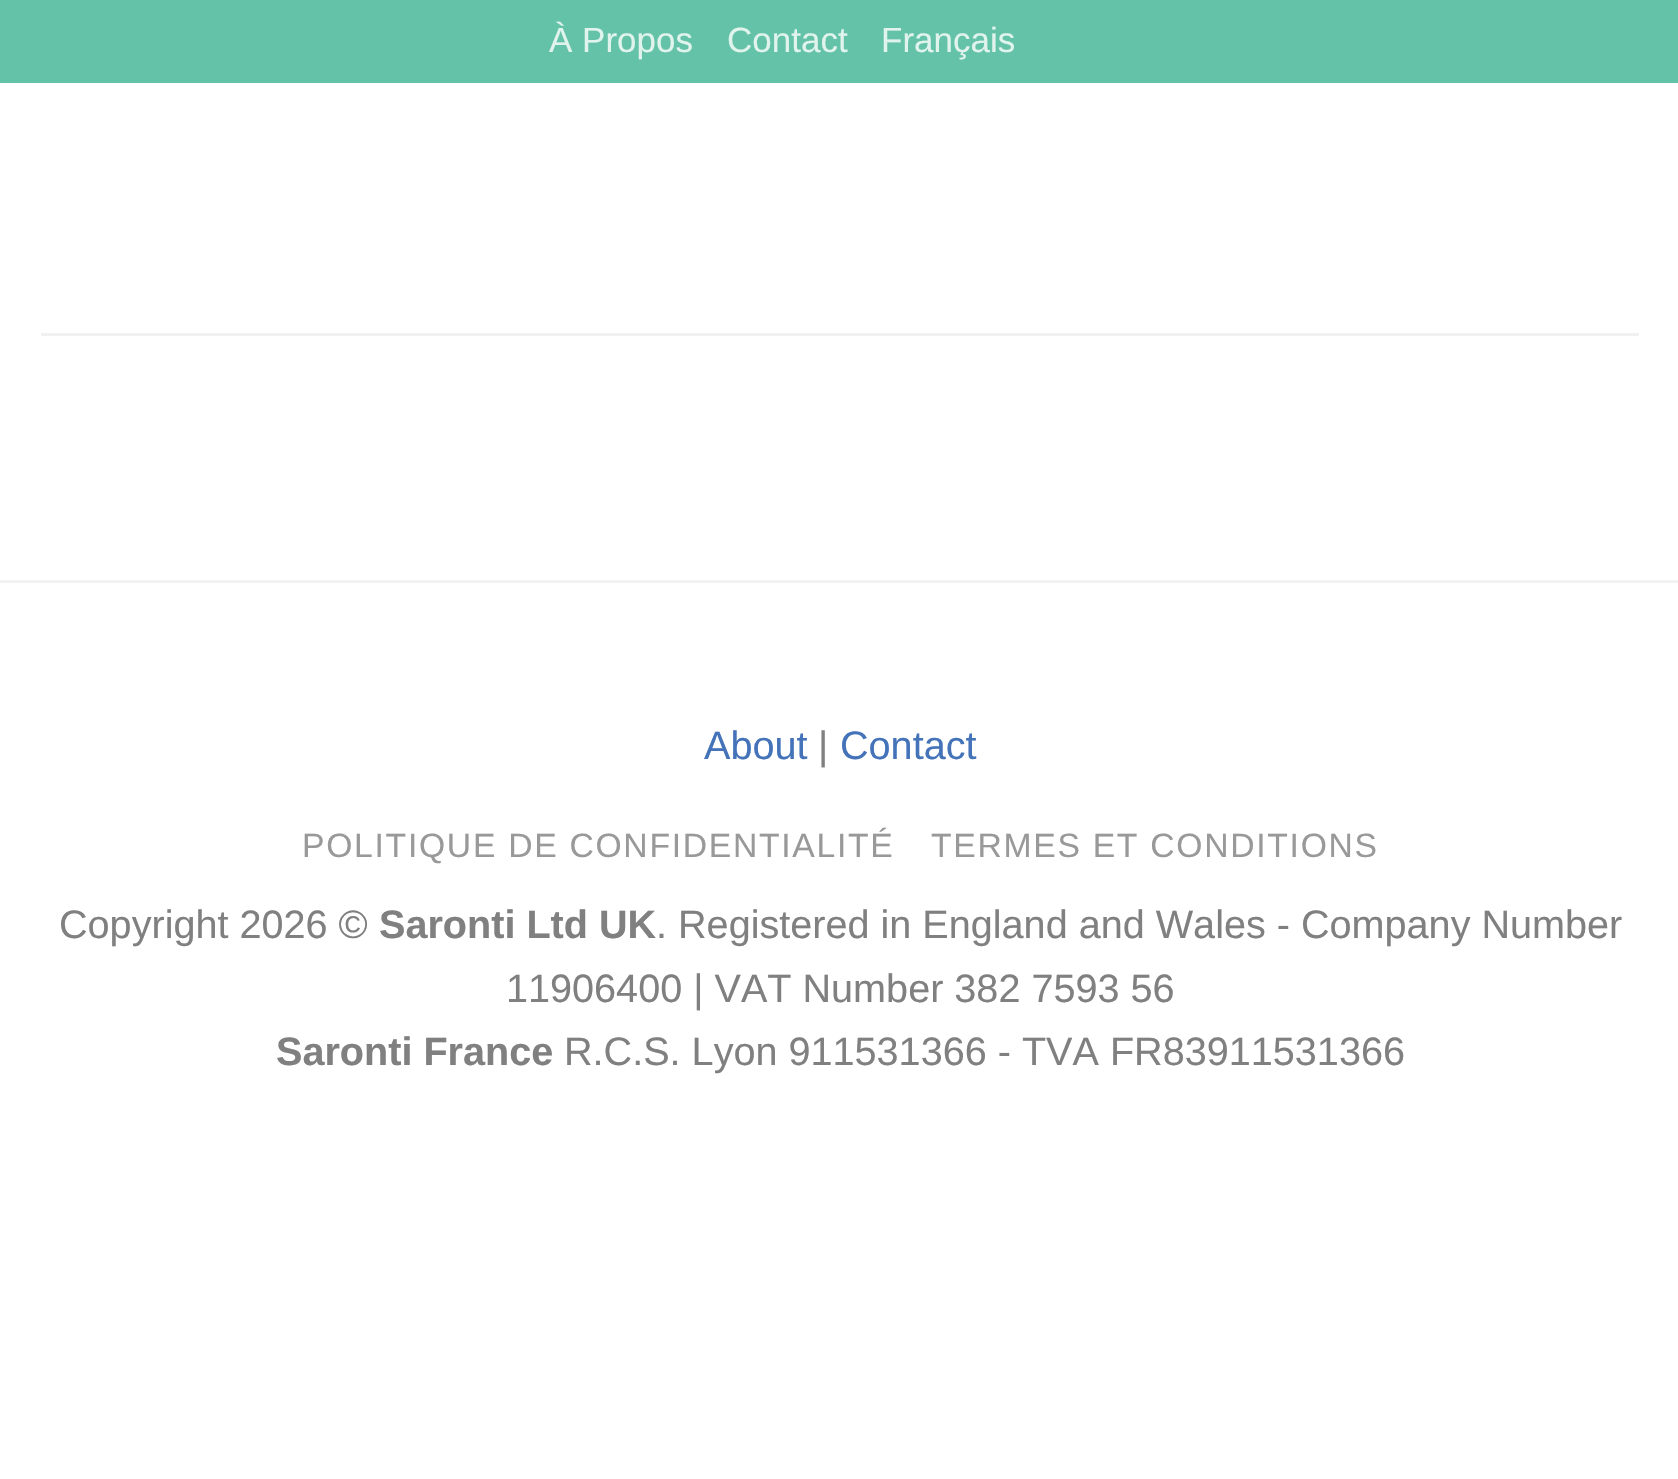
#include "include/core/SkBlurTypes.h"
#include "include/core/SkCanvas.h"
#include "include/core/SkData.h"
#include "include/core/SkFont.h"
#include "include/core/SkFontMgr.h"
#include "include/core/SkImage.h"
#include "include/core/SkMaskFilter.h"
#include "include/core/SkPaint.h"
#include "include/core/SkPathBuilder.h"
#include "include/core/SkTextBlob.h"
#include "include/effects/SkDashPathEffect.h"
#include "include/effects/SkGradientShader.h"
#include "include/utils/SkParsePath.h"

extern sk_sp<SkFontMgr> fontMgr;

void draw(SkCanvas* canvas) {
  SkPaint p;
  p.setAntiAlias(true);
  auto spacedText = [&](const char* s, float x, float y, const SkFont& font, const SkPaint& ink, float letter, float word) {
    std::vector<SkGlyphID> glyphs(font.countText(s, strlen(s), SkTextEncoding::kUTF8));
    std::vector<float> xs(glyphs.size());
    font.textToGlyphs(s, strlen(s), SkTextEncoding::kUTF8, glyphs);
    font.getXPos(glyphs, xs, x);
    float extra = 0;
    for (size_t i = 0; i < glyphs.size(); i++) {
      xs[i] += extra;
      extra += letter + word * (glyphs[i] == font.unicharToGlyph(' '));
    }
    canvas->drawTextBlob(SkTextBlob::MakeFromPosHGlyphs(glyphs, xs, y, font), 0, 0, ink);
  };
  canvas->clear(SK_ColorWHITE);
  p.setColor(SkColorSetRGB(99, 194, 167));
  canvas->drawRect(SkRect::MakeLTRB(0, 0, 1678, 83), p);
  p.setColor(SkColorSetRGB(241, 241, 241));
  canvas->drawRect(SkRect::MakeLTRB(41, 333, 1639, 336), p);
  p.setColor(SkColorSetRGB(242, 242, 242));
  canvas->drawRect(SkRect::MakeLTRB(0, 580, 1678, 583), p);
  SkFont font1(fontMgr->matchFamilyStyle("Liberation Sans", SkFontStyle::Normal()), 35);
  font1.setSubpixel(true);
  p.setColor(SkColorSetRGB(224, 243, 237));
  canvas->drawString("À Propos", 549, 52, font1, p);
  canvas->drawString("Contact", 727, 52, font1, p);
  canvas->drawString("Français", 881, 52, font1, p);
  SkFont font2(fontMgr->matchFamilyStyle("Liberation Sans", SkFontStyle::Normal()), 39.6f);
  font2.setSubpixel(true);
  p.setColor(SkColorSetRGB(68, 115, 185));
  canvas->drawString("About", 704, 759, font2, p);
  p.setColor(SkColorSetRGB(128, 128, 128));
  canvas->drawString("|", 818, 759, font2, p);
  p.setColor(SkColorSetRGB(68, 115, 185));
  canvas->drawString("Contact", 840, 759, font2, p);
  SkFont font3(fontMgr->matchFamilyStyle("Liberation Sans", SkFontStyle::Normal()), 33.7f);
  font3.setSubpixel(true);
  p.setColor(SkColorSetRGB(153, 153, 153));
  spacedText("POLITIQUE DE CONFIDENTIALITÉ", 302, 857, font3, p, 1.7f, 0);
  spacedText("TERMES ET CONDITIONS", 931, 857, font3, p, 1.7f, 0);
  p.setColor(SkColorSetRGB(128, 128, 128));
  canvas->drawString("Copyright 2026 ©", 59, 938, font2, p);
  SkFont font4(fontMgr->matchFamilyStyle("Liberation Sans", SkFontStyle::Bold()), 39.6f);
  font4.setSubpixel(true);
  canvas->drawString("Saronti Ltd UK", 379, 938, font4, p);
  canvas->drawString(". Registered in England and Wales - Company Number", 656, 938, font2, p);
  canvas->drawString("11906400 | VAT Number 382 7593 56", 506, 1002, font2, p);
  canvas->drawString("Saronti France", 276, 1065, font4, p);
  canvas->drawString("R.C.S. Lyon 911531366 - TVA FR83911531366", 564, 1065, font2, p);
}
